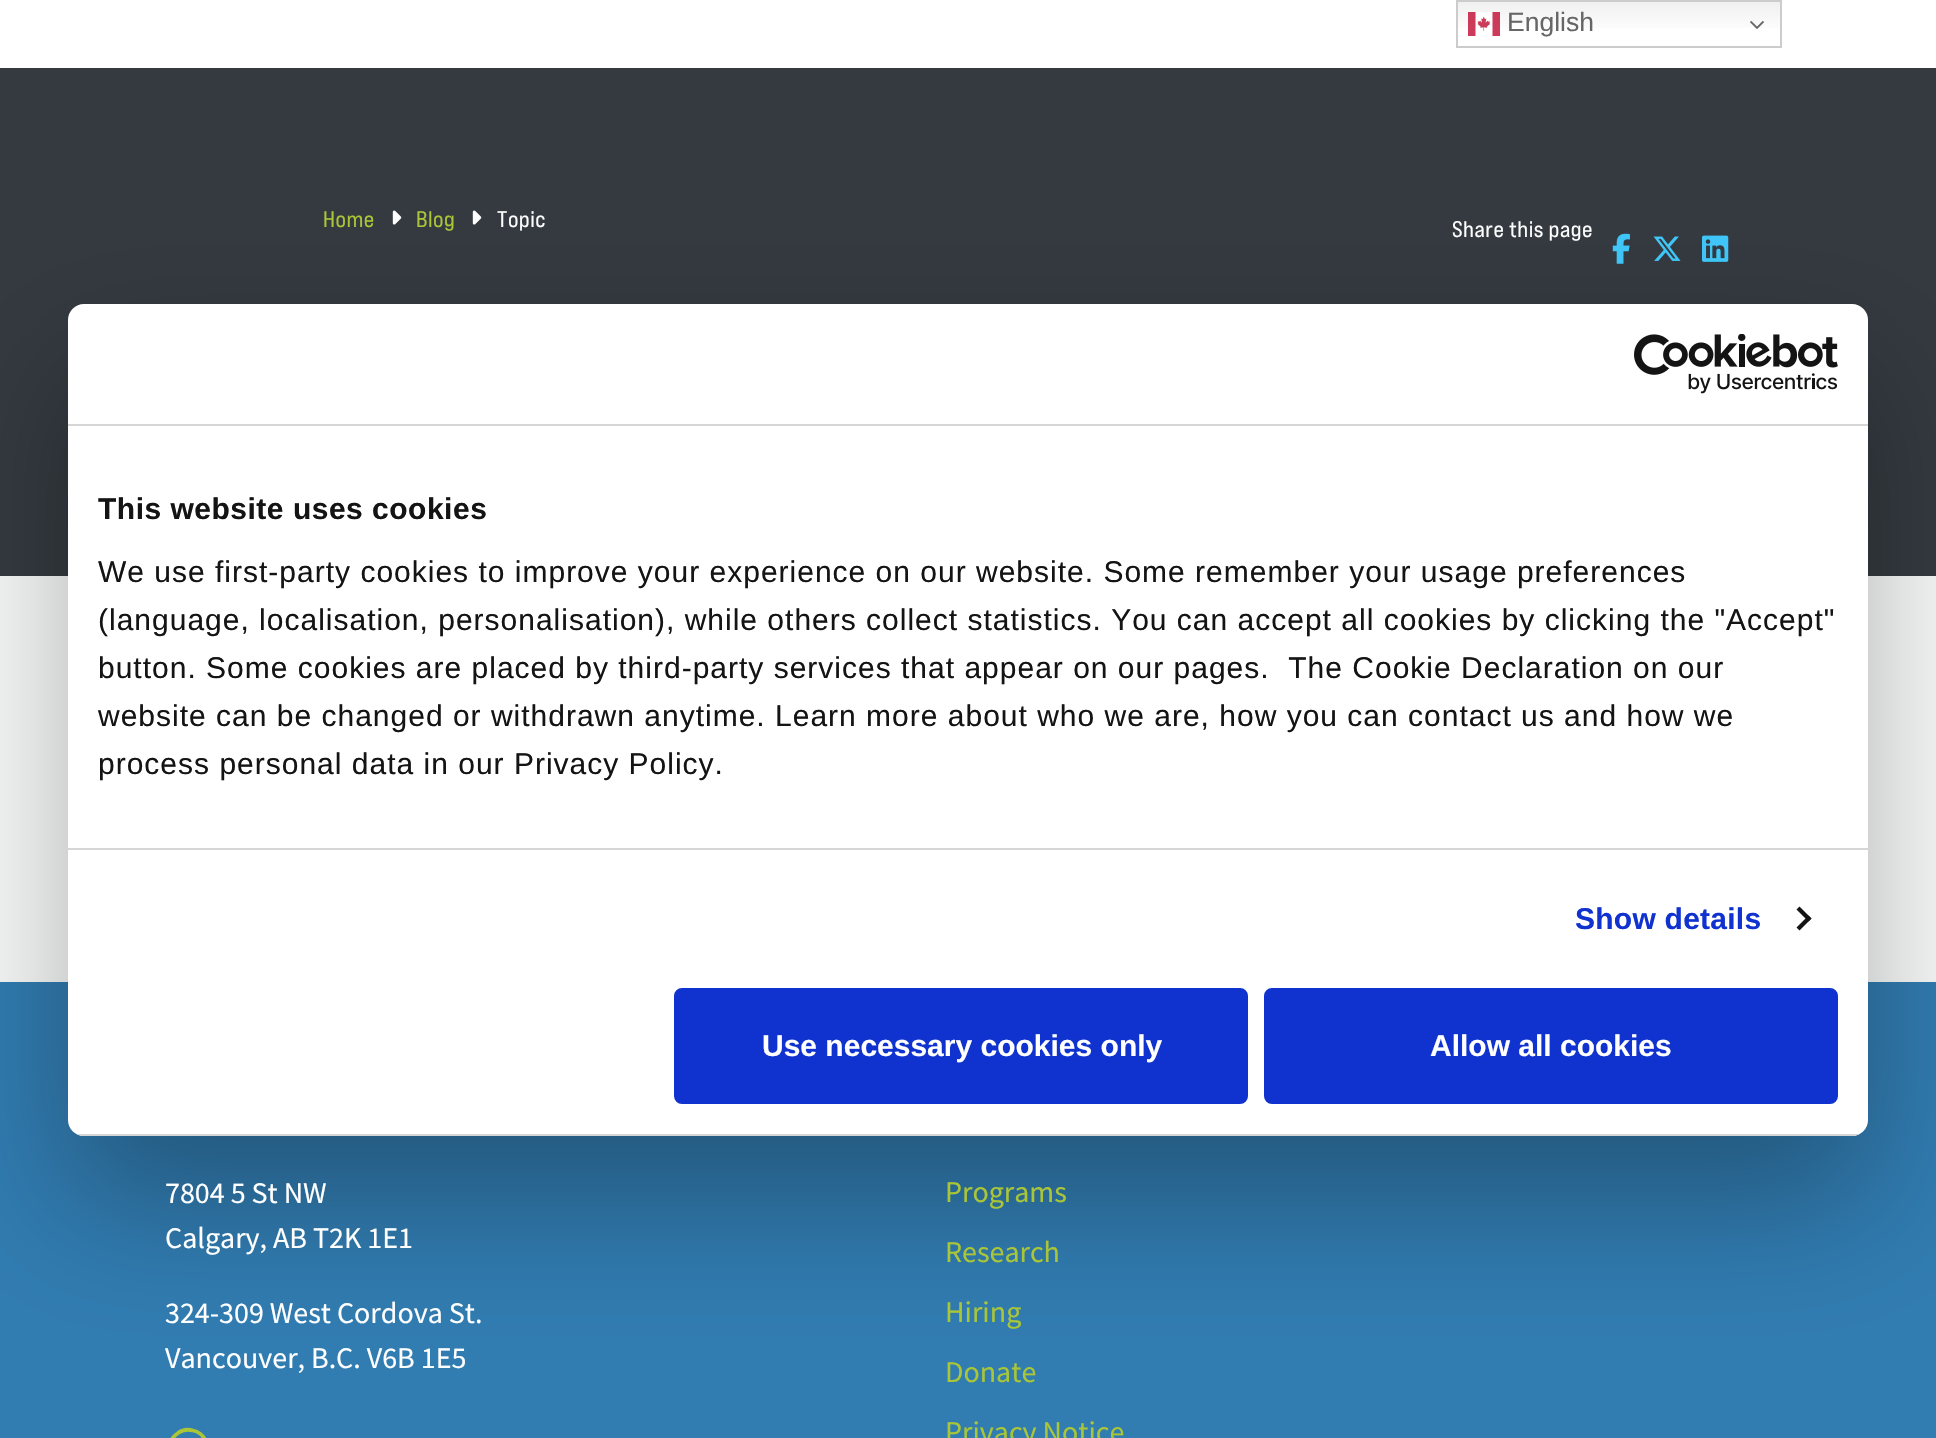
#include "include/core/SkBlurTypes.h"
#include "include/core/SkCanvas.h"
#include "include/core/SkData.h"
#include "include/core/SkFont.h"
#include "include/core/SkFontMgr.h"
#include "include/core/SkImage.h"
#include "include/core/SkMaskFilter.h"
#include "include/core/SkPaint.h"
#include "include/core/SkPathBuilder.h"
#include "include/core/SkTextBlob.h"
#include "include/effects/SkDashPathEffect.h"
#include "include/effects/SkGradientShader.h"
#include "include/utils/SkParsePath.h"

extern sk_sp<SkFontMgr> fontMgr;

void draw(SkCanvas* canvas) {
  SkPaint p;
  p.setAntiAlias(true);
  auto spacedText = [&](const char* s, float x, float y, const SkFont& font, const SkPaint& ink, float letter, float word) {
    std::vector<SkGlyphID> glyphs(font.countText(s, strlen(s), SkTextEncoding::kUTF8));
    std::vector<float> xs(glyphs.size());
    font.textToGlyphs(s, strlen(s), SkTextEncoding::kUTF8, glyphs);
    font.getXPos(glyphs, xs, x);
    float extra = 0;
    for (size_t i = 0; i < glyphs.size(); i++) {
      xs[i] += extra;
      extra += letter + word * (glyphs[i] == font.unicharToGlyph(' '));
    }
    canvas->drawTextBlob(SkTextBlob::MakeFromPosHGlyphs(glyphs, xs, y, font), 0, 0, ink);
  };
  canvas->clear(SK_ColorWHITE);
  {
    const SkColor colors[] = {SkColorSetRGB(239, 239, 239), SK_ColorWHITE};
    const float stops[] = {0, 0.7f};
    const SkPoint ends[] = {{1619, 0}, {1619, 48}};
    p.setShader(SkGradientShader::MakeLinear(ends, colors, stops, 2, SkTileMode::kClamp));
    p.setAlpha(255);
  }
  canvas->drawRect(SkRect::MakeLTRB(1458, 2, 1780, 28), p);
  p.setStyle(SkPaint::kStroke_Style);
  p.setStrokeWidth(2);
  p.setShader(nullptr);
  p.setColor(SkColorSetRGB(204, 204, 204));
  canvas->drawRect(SkRect::MakeLTRB(1457, 1, 1781, 47), p);
  canvas->drawImageRect(SkImages::DeferredFromEncodedData(SkData::MakeFromFileName("images/1.png")), SkRect::MakeLTRB(1468, 12, 1500, 36), SkSamplingOptions());
  canvas->drawImageRect(SkImages::DeferredFromEncodedData(SkData::MakeFromFileName("images/2.png")), SkRect::MakeLTRB(1750, 21, 1764, 29), SkSamplingOptions());
  p.setStyle(SkPaint::kFill_Style);
  p.setColor(SkColorSetRGB(52, 58, 64));
  canvas->drawRect(SkRect::MakeLTRB(0, 68, 1936, 576), p);
  canvas->drawImageRect(SkImages::DeferredFromEncodedData(SkData::MakeFromFileName("images/3.png")), SkRect::MakeLTRB(392, 210, 402, 225), SkSamplingOptions());
  canvas->drawImageRect(SkImages::DeferredFromEncodedData(SkData::MakeFromFileName("images/3.png")), SkRect::MakeLTRB(472, 210, 482, 225), SkSamplingOptions());
  canvas->drawImageRect(SkImages::DeferredFromEncodedData(SkData::MakeFromFileName("images/4.png")), SkRect::MakeLTRB(1612, 233, 1630, 264), SkSamplingOptions());
  canvas->drawImageRect(SkImages::DeferredFromEncodedData(SkData::MakeFromFileName("images/5.png")), SkRect::MakeLTRB(1653, 236, 1681, 261), SkSamplingOptions());
  canvas->drawImageRect(SkImages::DeferredFromEncodedData(SkData::MakeFromFileName("images/6.png")), SkRect::MakeLTRB(1702, 235, 1729, 262), SkSamplingOptions());
  p.setColor(SkColorSetRGB(248, 249, 249));
  canvas->drawRect(SkRect::MakeLTRB(0, 576, 1936, 982), p);
  p.setColor(SkColorSetRGB(49, 124, 177));
  canvas->drawRect(SkRect::MakeLTRB(0, 982, 1936, 1438), p);
  p.setColor(SkColorSetARGB(77, 0, 0, 0));
  p.setMaskFilter(SkMaskFilter::MakeBlur(kNormal_SkBlurStyle, 68));
  canvas->drawRoundRect(SkRect::MakeLTRB(68, 368, 1868, 1200), 16, 16, p);
  p.setMaskFilter(nullptr);
  p.setColor(SK_ColorWHITE);
  canvas->drawRoundRect(SkRect::MakeLTRB(68, 304, 1868, 1136), 16, 16, p);
  p.setColor(SkColorSetRGB(214, 214, 214));
  canvas->drawRect(SkRect::MakeLTRB(68, 424, 1868, 426), p);
  canvas->drawImageRect(SkImages::DeferredFromEncodedData(SkData::MakeFromFileName("images/7.png")), SkRect::MakeLTRB(1634, 334, 1838, 394), SkSamplingOptions());
  canvas->drawRect(SkRect::MakeLTRB(68, 848, 1868, 850), p);
  p.setColor(SkColorSetRGB(20, 20, 20));
  canvas->drawPath(SkPathBuilder().moveTo(1799.5f, 906.5f).lineTo(1811.5f, 918.5f).lineTo(1808.5f, 921.5f).lineTo(1796.5f, 909.5f).close().detach(), p);
  canvas->drawPath(SkPathBuilder().moveTo(1808.5f, 915.5f).lineTo(1811.5f, 918.5f).lineTo(1799.5f, 930.5f).lineTo(1796.5f, 927.5f).close().detach(), p);
  canvas->save();
  canvas->clipPath(SkPathBuilder().moveTo(84, 304).lineTo(1852, 304).cubicTo(1861, 304, 1868, 311, 1868, 320).lineTo(1868, 1120).cubicTo(1868, 1129, 1861, 1136, 1852, 1136).lineTo(84, 1136).cubicTo(75, 1136, 68, 1129, 68, 1120).lineTo(68, 320).cubicTo(68, 311, 75, 304, 84, 304).close().detach(), true);
  p.setColor(SkColorSetRGB(214, 214, 214));
  canvas->drawRect(SkRect::MakeLTRB(68, 1134, 1868, 1136), p);
  canvas->restore();
  p.setColor(SkColorSetRGB(16, 50, 207));
  canvas->drawRoundRect(SkRect::MakeLTRB(676, 990, 1246, 1102), 6, 6, p);
  p.setStyle(SkPaint::kStroke_Style);
  p.setStrokeWidth(4);
  canvas->drawRoundRect(SkRect::MakeLTRB(676, 990, 1246, 1102), 6, 6, p);
  p.setStyle(SkPaint::kFill_Style);
  canvas->drawRoundRect(SkRect::MakeLTRB(1266, 990, 1836, 1102), 6, 6, p);
  p.setStyle(SkPaint::kStroke_Style);
  canvas->drawRoundRect(SkRect::MakeLTRB(1266, 990, 1836, 1102), 6, 6, p);
  p.setStrokeWidth(3.8f);
  p.setStrokeCap(SkPaint::kRound_Cap);
  p.setStrokeJoin(SkPaint::kRound_Join);
  p.setColor(SkColorSetRGB(170, 198, 55));
  canvas->drawPath(SkPathBuilder().moveTo(196, 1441).lineTo(196, 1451.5f).cubicTo(197.5f, 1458.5f, 207.5f, 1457, 207, 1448.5f).cubicTo(207, 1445.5f, 206.5f, 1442.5f, 205, 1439.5f).cubicTo(202.5f, 1435, 198, 1431.5f, 193, 1430.5f).cubicTo(187.5f, 1429, 182, 1430, 178, 1433).cubicTo(157, 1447.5f, 179.5f, 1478.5f, 200, 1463.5f).detach(), p);
  SkFont font1(fontMgr->matchFamilyStyle("Liberation Sans", SkFontStyle::Normal()), 26.5f);
  font1.setSubpixel(true);
  p.setStyle(SkPaint::kFill_Style);
  p.setColor(SkColorSetRGB(102, 102, 102));
  canvas->drawString("English", 1507, 31, font1, p);
  SkFont font2(fontMgr->matchFamilyStyle("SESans", SkFontStyle::Normal()), 22.5f);
  font2.setSubpixel(true);
  p.setColor(SkColorSetRGB(170, 198, 55));
  spacedText("Home", 323, 227, font2, p, 0.5f, 0);
  spacedText("Blog", 416, 227, font2, p, 0.5f, 0);
  p.setColor(SK_ColorWHITE);
  spacedText("Topic", 497, 227, font2, p, 0.5f, 0);
  spacedText("Share this page", 1452, 237, font2, p, 0.5f, 0);
  SkFont font3(fontMgr->matchFamilyStyle("Liberation Sans", SkFontStyle::Bold()), 30);
  font3.setSubpixel(true);
  p.setColor(SkColorSetRGB(20, 20, 20));
  spacedText("This website uses cookies", 98, 519, font3, p, 0.5f, 0);
  SkFont font4(fontMgr->matchFamilyStyle("Liberation Sans", SkFontStyle::Normal()), 30);
  font4.setSubpixel(true);
  spacedText("We use first-party cookies to improve your experience on our website. Some remember your usage preferences", 98, 582, font4, p, 1, 0);
  spacedText("(language, localisation, personalisation), while others collect statistics. You can accept all cookies by clicking the \"Accept\"", 98, 630, font4, p, 1, 0);
  spacedText("button. Some cookies are placed by third-party services that appear on our pages.  The Cookie Declaration on our", 98, 678, font4, p, 1, 0);
  spacedText("website can be changed or withdrawn anytime. Learn more about who we are, how you can contact us and how we", 98, 726, font4, p, 1, 0);
  spacedText("process personal data in our Privacy Policy.", 98, 774, font4, p, 1, 0);
  p.setColor(SkColorSetRGB(16, 50, 207));
  spacedText("Show details", 1575, 929, font3, p, 0.25f, 0);
  p.setColor(SK_ColorWHITE);
  canvas->drawString("Use necessary cookies only", 762, 1056, font3, p);
  canvas->drawString("Allow all cookies", 1430, 1056, font3, p);
  SkFont font5(fontMgr->matchFamilyStyle("Source Sans Pro", SkFontStyle::Normal()), 30);
  font5.setSubpixel(true);
  canvas->drawString("7804 5 St NW", 165, 1203, font5, p);
  canvas->drawString("Calgary, AB T2K 1E1", 165, 1248, font5, p);
  canvas->drawString("324-309 West Cordova St.", 165, 1323, font5, p);
  canvas->drawString("Vancouver, B.C. V6B 1E5", 165, 1368, font5, p);
  p.setColor(SkColorSetRGB(170, 198, 55));
  canvas->drawString("Programs", 945, 1202, font5, p);
  canvas->drawString("Research", 945, 1262, font5, p);
  canvas->drawString("Hiring", 945, 1322, font5, p);
  canvas->drawString("Donate", 945, 1382, font5, p);
  canvas->drawString("Privacy Notice", 945, 1442, font5, p);
}
